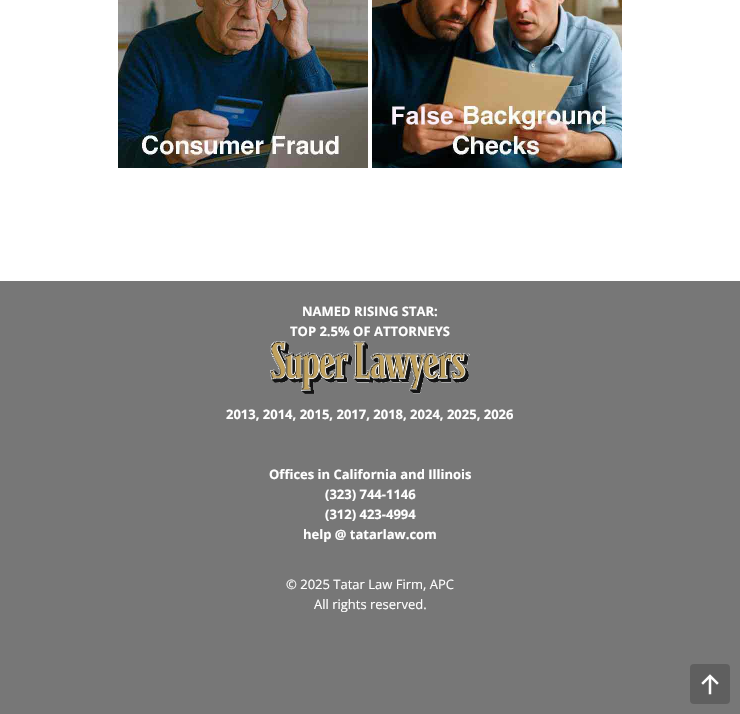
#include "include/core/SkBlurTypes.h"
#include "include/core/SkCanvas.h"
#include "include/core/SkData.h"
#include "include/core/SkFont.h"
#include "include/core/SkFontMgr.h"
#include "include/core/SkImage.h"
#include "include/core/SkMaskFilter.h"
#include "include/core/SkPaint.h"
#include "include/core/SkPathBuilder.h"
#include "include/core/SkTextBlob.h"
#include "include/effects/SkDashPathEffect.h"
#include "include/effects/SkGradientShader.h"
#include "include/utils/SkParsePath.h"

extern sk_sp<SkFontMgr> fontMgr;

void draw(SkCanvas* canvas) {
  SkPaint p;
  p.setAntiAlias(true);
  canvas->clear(SK_ColorWHITE);
  canvas->drawImageRect(SkImages::DeferredFromEncodedData(SkData::MakeFromFileName("images/1.png")), SkRect::MakeLTRB(118, 0, 368, 168), SkSamplingOptions());
  canvas->drawImageRect(SkImages::DeferredFromEncodedData(SkData::MakeFromFileName("images/2.png")), SkRect::MakeLTRB(372, 0, 622, 168), SkSamplingOptions());
  p.setColor(SkColorSetRGB(119, 119, 119));
  canvas->drawRect(SkRect::MakeLTRB(0, 281, 740, 714), p);
  canvas->drawImageRect(SkImages::DeferredFromEncodedData(SkData::MakeFromFileName("images/3.png")), SkRect::MakeLTRB(270, 341, 470, 394), SkSamplingOptions());
  p.setColor(SkColorSetRGB(95, 95, 95));
  canvas->drawRoundRect(SkRect::MakeLTRB(690, 664, 730, 704), 4, 4, p);
  canvas->drawImageRect(SkImages::DeferredFromEncodedData(SkData::MakeFromFileName("images/4.png")), SkRect::MakeLTRB(701, 674, 719, 695), SkSamplingOptions());
  SkFont font1(fontMgr->matchFamilyStyle("Open Sans", SkFontStyle::Bold()), 13);
  font1.setSubpixel(true);
  p.setColor(SK_ColorWHITE);
  canvas->drawString("NAMED RISING STAR:", 302, 316, font1, p);
  canvas->drawString("TOP 2.5% OF ATTORNEYS", 290, 336, font1, p);
  canvas->drawString("2013, 2014, 2015, 2017, 2018, 2024, 2025, 2026", 226, 419, font1, p);
  canvas->drawString("Offices in California and Illinois", 269, 479, font1, p);
  canvas->drawString("(323) 744-1146", 325, 499, font1, p);
  canvas->drawString("(312) 423-4994", 325, 519, font1, p);
  canvas->drawString("help @ tatarlaw.com", 303, 539, font1, p);
  SkFont font2(fontMgr->matchFamilyStyle("Open Sans", SkFontStyle::Normal()), 13);
  font2.setSubpixel(true);
  canvas->drawString("© 2025 Tatar Law Firm, APC", 286, 589, font2, p);
  canvas->drawString("All rights reserved.", 314, 609, font2, p);
}
